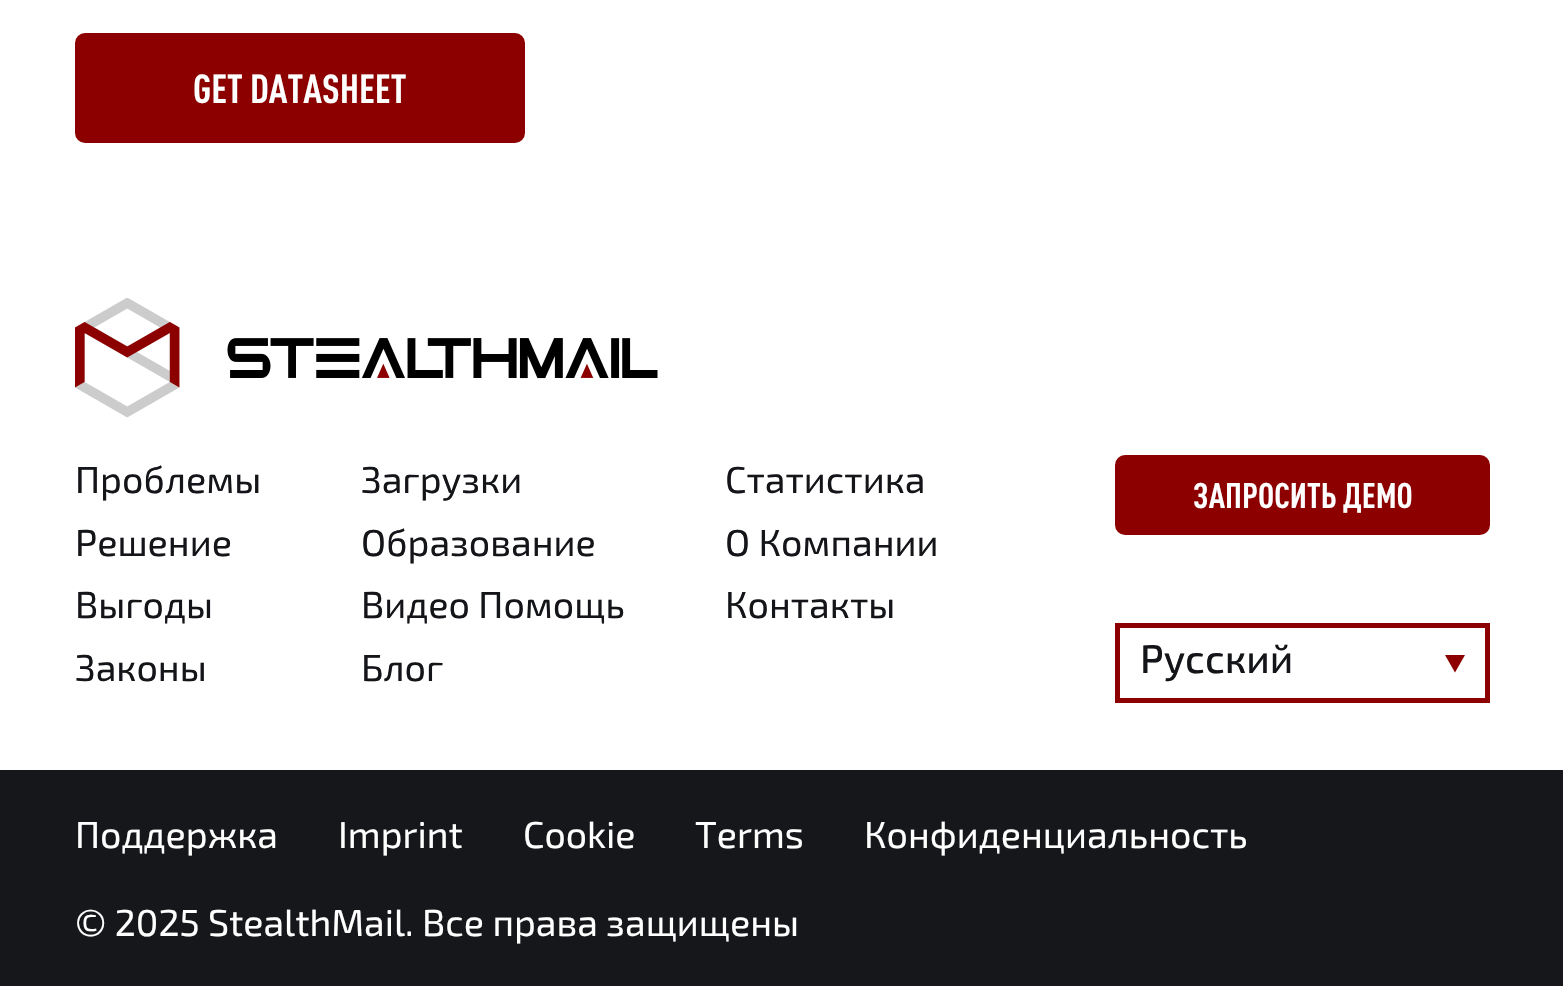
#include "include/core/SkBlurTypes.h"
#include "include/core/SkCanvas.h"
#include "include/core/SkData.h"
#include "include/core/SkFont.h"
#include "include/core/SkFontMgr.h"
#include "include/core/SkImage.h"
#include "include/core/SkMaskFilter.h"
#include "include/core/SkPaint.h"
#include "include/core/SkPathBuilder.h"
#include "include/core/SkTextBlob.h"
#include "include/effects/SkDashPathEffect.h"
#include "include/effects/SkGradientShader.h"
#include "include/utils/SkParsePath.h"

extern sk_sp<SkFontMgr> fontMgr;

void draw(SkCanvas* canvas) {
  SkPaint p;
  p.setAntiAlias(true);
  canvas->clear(SK_ColorWHITE);
  p.setColor(SkColorSetRGB(140, 0, 0));
  canvas->drawRoundRect(SkRect::MakeLTRB(77.5f, 35.5f, 522.5f, 140.5f), 7.5f, 7.5f, p);
  p.setStyle(SkPaint::kStroke_Style);
  p.setStrokeWidth(5);
  canvas->drawRoundRect(SkRect::MakeLTRB(77.5f, 35.5f, 522.5f, 140.5f), 7.5f, 7.5f, p);
  canvas->drawImageRect(SkImages::DeferredFromEncodedData(SkData::MakeFromFileName("images/1.png")), SkRect::MakeLTRB(75, 298, 658, 418), SkSamplingOptions());
  p.setStyle(SkPaint::kFill_Style);
  canvas->drawRoundRect(SkRect::MakeLTRB(1117.5f, 457.5f, 1487.5f, 532.5f), 7.5f, 7.5f, p);
  p.setStyle(SkPaint::kStroke_Style);
  canvas->drawRoundRect(SkRect::MakeLTRB(1117.5f, 457.5f, 1487.5f, 532.5f), 7.5f, 7.5f, p);
  canvas->drawRect(SkRect::MakeLTRB(1117.5f, 625.5f, 1487.5f, 700.5f), p);
  p.setStyle(SkPaint::kFill_Style);
  canvas->drawPath(SkPathBuilder().moveTo(1445, 655).lineTo(1465, 655).lineTo(1455, 672.5f).close().detach(), p);
  p.setColor(SkColorSetRGB(22, 23, 27));
  canvas->drawRect(SkRect::MakeLTRB(0, 770, 1563, 986), p);
  SkFont font1(fontMgr->matchFamilyStyle("DIN", SkFontStyle::Bold()), 40);
  font1.setSubpixel(true);
  p.setColor(SK_ColorWHITE);
  canvas->drawString("GET DATASHEET", 193, 103, font1, p);
  SkFont font2(fontMgr->matchFamilyStyle("Exo 2", SkFontStyle::Normal()), 37.5f);
  font2.setSubpixel(true);
  p.setColor(SkColorSetRGB(20, 21, 25));
  canvas->drawString("Проблемы", 75, 493, font2, p);
  canvas->drawString("Решение", 75, 556, font2, p);
  canvas->drawString("Выгоды", 75, 618, font2, p);
  canvas->drawString("Законы", 75, 681, font2, p);
  canvas->drawString("Загрузки", 361, 493, font2, p);
  canvas->drawString("Образование", 361, 556, font2, p);
  canvas->drawString("Видео Помощь", 361, 618, font2, p);
  canvas->drawString("Блог", 361, 681, font2, p);
  canvas->drawString("Статистика", 725, 493, font2, p);
  canvas->drawString("О Компании", 725, 556, font2, p);
  canvas->drawString("Контакты", 725, 618, font2, p);
  SkFont font3(fontMgr->matchFamilyStyle("DIN", SkFontStyle::Bold()), 35);
  font3.setSubpixel(true);
  p.setColor(SK_ColorWHITE);
  canvas->drawString("ЗАПРОСИТЬ ДЕМО", 1193, 508, font3, p);
  SkFont font4(fontMgr->matchFamilyStyle("Exo 2", SkFontStyle(500, SkFontStyle::kNormal_Width, SkFontStyle::kUpright_Slant)), 40);
  font4.setSubpixel(true);
  p.setColor(SkColorSetRGB(20, 21, 25));
  canvas->drawString("Русский", 1140, 673, font4, p);
  p.setColor(SK_ColorWHITE);
  canvas->drawString("Поддержка", 75, 848, font2, p);
  canvas->drawString("Imprint", 338, 848, font2, p);
  canvas->drawString("Cookie", 523, 848, font2, p);
  canvas->drawString("Terms", 695, 848, font2, p);
  canvas->drawString("Конфиденциальность", 864, 848, font2, p);
  canvas->drawString("© 2025 StealthMail. Все права защищены", 75, 936, font2, p);
}
